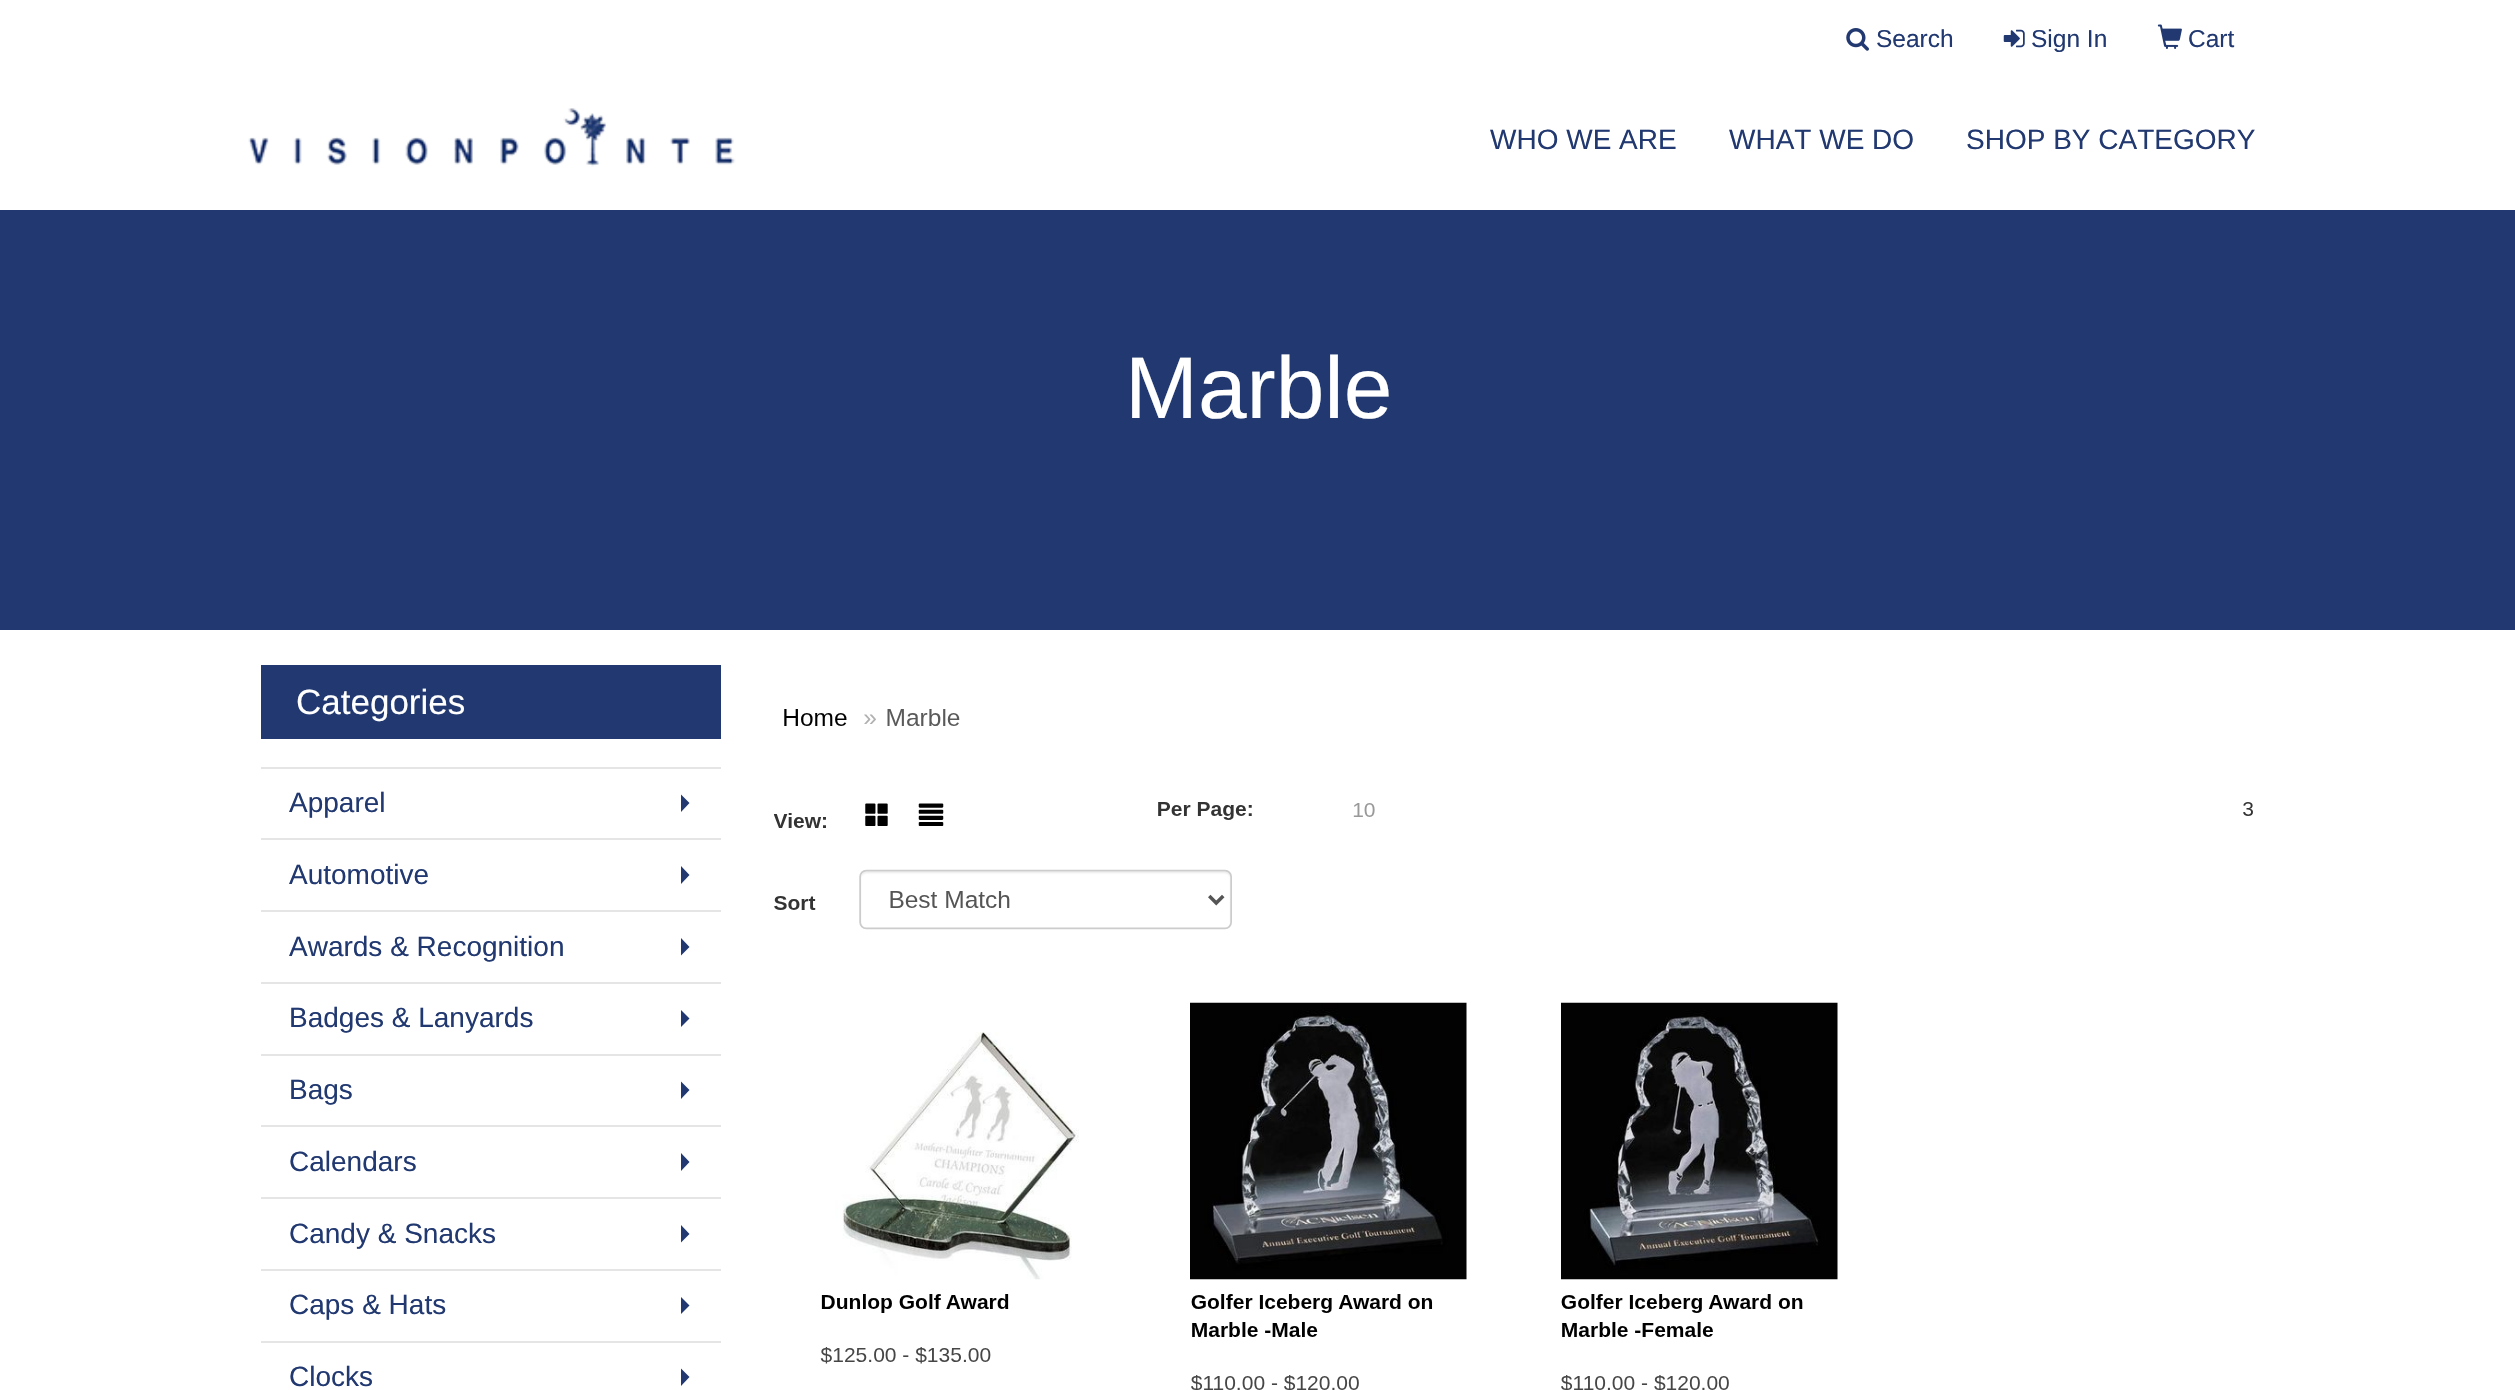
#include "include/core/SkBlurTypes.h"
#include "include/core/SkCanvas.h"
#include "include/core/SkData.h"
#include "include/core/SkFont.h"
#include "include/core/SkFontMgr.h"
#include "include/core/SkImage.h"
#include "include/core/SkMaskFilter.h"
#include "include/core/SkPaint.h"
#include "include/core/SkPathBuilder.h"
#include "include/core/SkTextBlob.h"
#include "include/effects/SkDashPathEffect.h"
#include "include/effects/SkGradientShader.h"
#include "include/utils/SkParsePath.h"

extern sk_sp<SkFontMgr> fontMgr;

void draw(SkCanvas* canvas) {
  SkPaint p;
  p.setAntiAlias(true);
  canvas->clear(SkColorSetRGB(33, 57, 112));
  p.setColor(SK_ColorWHITE);
  canvas->drawRect(SkRect::MakeLTRB(0, 0, 2515, 210), p);
  canvas->drawImageRect(SkImages::DeferredFromEncodedData(SkData::MakeFromFileName("images/1.png")), SkRect::MakeLTRB(1846, 28, 1869, 51), SkSamplingOptions());
  canvas->drawImageRect(SkImages::DeferredFromEncodedData(SkData::MakeFromFileName("images/2.png")), SkRect::MakeLTRB(2003, 29, 2025, 48), SkSamplingOptions());
  canvas->drawImageRect(SkImages::DeferredFromEncodedData(SkData::MakeFromFileName("images/3.png")), SkRect::MakeLTRB(2157, 24, 2182, 49), SkSamplingOptions());
  canvas->drawImageRect(SkImages::DeferredFromEncodedData(SkData::MakeFromFileName("images/4.png")), SkRect::MakeLTRB(248, 108, 736, 167), SkSamplingOptions());
  canvas->drawRect(SkRect::MakeLTRB(0, 630, 2515, 1390), p);
  p.setColor(SkColorSetRGB(33, 57, 112));
  canvas->drawRect(SkRect::MakeLTRB(261, 665, 721, 739), p);
  p.setColor(SkColorSetRGB(229, 229, 229));
  canvas->drawRect(SkRect::MakeLTRB(261, 767, 721, 769), p);
  p.setColor(SkColorSetRGB(33, 57, 112));
  canvas->drawPath(SkPathBuilder().moveTo(681, 812).lineTo(681, 794.5f).lineTo(689.5f, 803).close().detach(), p);
  p.setColor(SkColorSetRGB(229, 229, 229));
  canvas->drawRect(SkRect::MakeLTRB(261, 838, 721, 840), p);
  p.setColor(SkColorSetRGB(33, 57, 112));
  canvas->drawPath(SkPathBuilder().moveTo(681, 884).lineTo(681, 866).lineTo(689.5f, 875).close().detach(), p);
  p.setColor(SkColorSetRGB(229, 229, 229));
  canvas->drawRect(SkRect::MakeLTRB(261, 910, 721, 912), p);
  p.setColor(SkColorSetRGB(33, 57, 112));
  canvas->drawPath(SkPathBuilder().moveTo(681, 955.5f).lineTo(681, 938).lineTo(689.5f, 947).close().detach(), p);
  p.setColor(SkColorSetRGB(229, 229, 229));
  canvas->drawRect(SkRect::MakeLTRB(261, 982, 721, 984), p);
  p.setColor(SkColorSetRGB(33, 57, 112));
  canvas->drawPath(SkPathBuilder().moveTo(681, 1027).lineTo(681, 1010).lineTo(689.5f, 1018.5f).close().detach(), p);
  p.setColor(SkColorSetRGB(229, 229, 229));
  canvas->drawRect(SkRect::MakeLTRB(261, 1054, 721, 1056), p);
  p.setColor(SkColorSetRGB(33, 57, 112));
  canvas->drawPath(SkPathBuilder().moveTo(681, 1099).lineTo(681, 1081.5f).lineTo(689.5f, 1090).close().detach(), p);
  p.setColor(SkColorSetRGB(229, 229, 229));
  canvas->drawRect(SkRect::MakeLTRB(261, 1125, 721, 1127), p);
  p.setColor(SkColorSetRGB(33, 57, 112));
  canvas->drawPath(SkPathBuilder().moveTo(681, 1171).lineTo(681, 1153).lineTo(689.5f, 1162).close().detach(), p);
  p.setColor(SkColorSetRGB(229, 229, 229));
  canvas->drawRect(SkRect::MakeLTRB(261, 1197, 721, 1199), p);
  p.setColor(SkColorSetRGB(33, 57, 112));
  canvas->drawPath(SkPathBuilder().moveTo(681, 1242.5f).lineTo(681, 1225).lineTo(689.5f, 1234).close().detach(), p);
  p.setColor(SkColorSetRGB(229, 229, 229));
  canvas->drawRect(SkRect::MakeLTRB(261, 1269, 721, 1271), p);
  p.setColor(SkColorSetRGB(33, 57, 112));
  canvas->drawPath(SkPathBuilder().moveTo(681, 1314).lineTo(681, 1297).lineTo(689.5f, 1305.5f).close().detach(), p);
  p.setColor(SkColorSetRGB(229, 229, 229));
  canvas->drawRect(SkRect::MakeLTRB(261, 1341, 721, 1343), p);
  p.setColor(SkColorSetRGB(33, 57, 112));
  canvas->drawPath(SkPathBuilder().moveTo(681, 1386).lineTo(681, 1368.5f).lineTo(689.5f, 1377).close().detach(), p);
  canvas->drawImageRect(SkImages::DeferredFromEncodedData(SkData::MakeFromFileName("images/5.png")), SkRect::MakeLTRB(773, 709, 2253, 1390), SkSamplingOptions());
  SkFont font1(fontMgr->matchFamilyStyle("Liberation Sans", SkFontStyle::Normal()), 24.5f);
  font1.setSubpixel(true);
  canvas->drawString("Search", 1876, 47, font1, p);
  canvas->drawString("Sign In", 2031, 47, font1, p);
  canvas->drawString("Cart", 2188, 47, font1, p);
  SkFont font2(fontMgr->matchFamilyStyle("Liberation Sans", SkFontStyle::Normal()), 28);
  font2.setSubpixel(true);
  canvas->drawString("WHO WE ARE", 1490, 149, font2, p);
  canvas->drawString("WHAT WE DO", 1729, 149, font2, p);
  canvas->drawString("SHOP BY CATEGORY", 1966, 149, font2, p);
  SkFont font3(fontMgr->matchFamilyStyle("Liberation Sans", SkFontStyle::Normal()), 87.5f);
  font3.setSubpixel(true);
  p.setColor(SK_ColorWHITE);
  canvas->drawString("Marble", 1125, 418, font3, p);
  SkFont font4(fontMgr->matchFamilyStyle("Liberation Sans", SkFontStyle::Normal()), 35);
  font4.setSubpixel(true);
  canvas->drawString("Categories", 296, 714, font4, p);
  p.setColor(SkColorSetRGB(33, 57, 112));
  canvas->drawString("Apparel", 289, 812, font2, p);
  canvas->drawString("Automotive", 289, 884, font2, p);
  canvas->drawString("Awards & Recognition", 289, 956, font2, p);
  canvas->drawString("Badges & Lanyards", 289, 1027, font2, p);
  canvas->drawString("Bags", 289, 1099, font2, p);
  canvas->drawString("Calendars", 289, 1171, font2, p);
  canvas->drawString("Candy & Snacks", 289, 1243, font2, p);
  canvas->drawString("Caps & Hats", 289, 1314, font2, p);
  canvas->drawString("Clocks", 289, 1386, font2, p);
}
